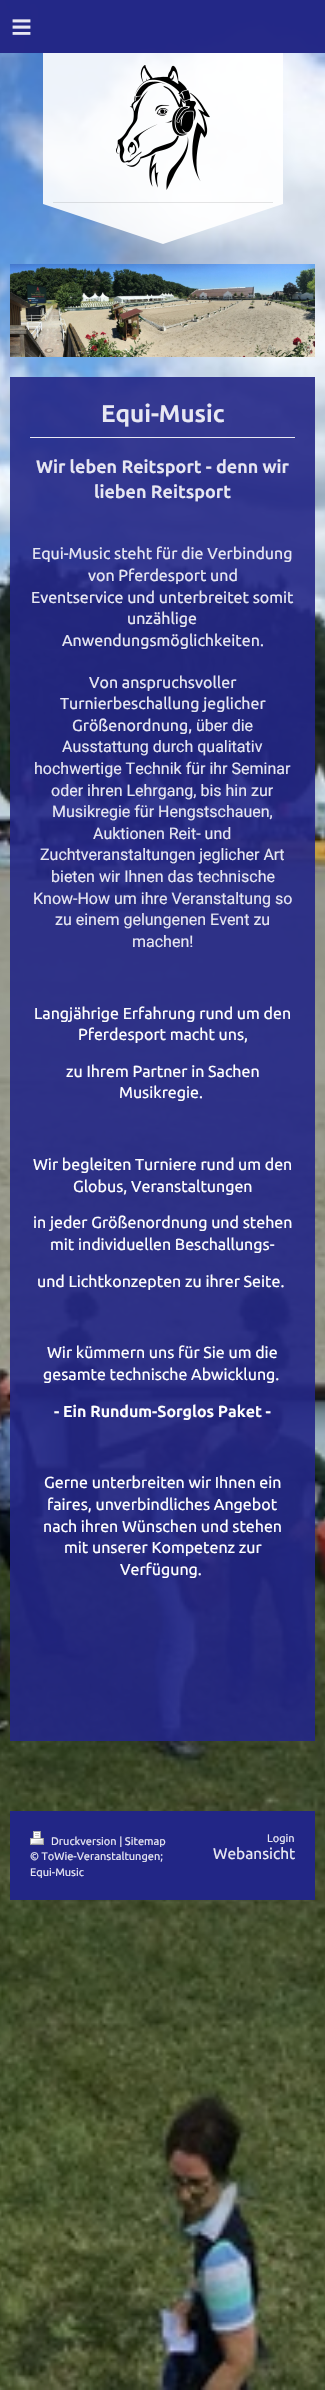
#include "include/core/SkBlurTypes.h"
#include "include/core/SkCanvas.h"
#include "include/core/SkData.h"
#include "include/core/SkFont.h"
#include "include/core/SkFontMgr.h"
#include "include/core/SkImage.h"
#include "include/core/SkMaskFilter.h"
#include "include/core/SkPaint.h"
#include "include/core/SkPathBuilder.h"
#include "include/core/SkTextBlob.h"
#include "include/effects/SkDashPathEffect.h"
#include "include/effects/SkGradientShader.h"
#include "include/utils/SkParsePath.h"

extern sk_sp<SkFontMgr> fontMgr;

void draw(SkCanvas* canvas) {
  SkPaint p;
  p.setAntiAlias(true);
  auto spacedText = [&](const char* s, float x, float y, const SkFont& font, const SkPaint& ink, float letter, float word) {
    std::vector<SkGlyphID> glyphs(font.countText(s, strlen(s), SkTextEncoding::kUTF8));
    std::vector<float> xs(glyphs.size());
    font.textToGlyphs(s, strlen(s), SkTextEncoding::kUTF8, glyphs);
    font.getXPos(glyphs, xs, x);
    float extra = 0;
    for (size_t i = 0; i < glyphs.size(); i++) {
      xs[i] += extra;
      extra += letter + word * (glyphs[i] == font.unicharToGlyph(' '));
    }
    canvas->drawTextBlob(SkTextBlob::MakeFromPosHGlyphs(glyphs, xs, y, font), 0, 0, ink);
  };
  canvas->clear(SK_ColorWHITE);
  canvas->drawImageRect(SkImages::DeferredFromEncodedData(SkData::MakeFromFileName("images/1.png")), SkRect::MakeLTRB(0, 0, 325, 2390), SkSamplingOptions());
  p.setColor(SkColorSetARGB(252, 34, 38, 134));
  canvas->drawRect(SkRect::MakeLTRB(0, 0, 325, 53), p);
  p.setColor(SkColorSetARGB(230, 255, 255, 255));
  canvas->drawRect(SkRect::MakeLTRB(43, 53, 283, 204), p);
  p.setColor(SkColorSetARGB(26, 0, 0, 0));
  canvas->drawRect(SkRect::MakeLTRB(53, 202, 273, 203), p);
  canvas->drawImageRect(SkImages::DeferredFromEncodedData(SkData::MakeFromFileName("images/2.png")), SkRect::MakeLTRB(116, 65, 210, 190), SkSamplingOptions());
  p.setColor(SkColorSetARGB(230, 255, 255, 255));
  canvas->drawPath(SkPathBuilder().moveTo(43, 204).lineTo(283, 204).lineTo(163, 244).close().detach(), p);
  canvas->drawImageRect(SkImages::DeferredFromEncodedData(SkData::MakeFromFileName("images/3.png")), SkRect::MakeLTRB(10, 264, 315, 357), SkSamplingOptions());
  p.setColor(SkColorSetARGB(230, 34, 38, 134));
  canvas->drawRect(SkRect::MakeLTRB(10, 377, 315, 1741), p);
  p.setColor(SkColorSetRGB(233, 233, 243));
  canvas->drawRect(SkRect::MakeLTRB(30, 437, 295, 438), p);
  p.setColor(SkColorSetRGB(34, 38, 134));
  canvas->drawRect(SkRect::MakeLTRB(10, 1811, 315, 1900), p);
  canvas->drawImageRect(SkImages::DeferredFromEncodedData(SkData::MakeFromFileName("images/4.png")), SkRect::MakeLTRB(30, 1831, 44, 1845), SkSamplingOptions());
  SkFont font1(fontMgr->matchFamilyStyle("Liberation Sans", SkFontStyle::Normal()), 36);
  font1.setSubpixel(true);
  p.setColor(SkColorSetRGB(231, 231, 242));
  spacedText("≡", 11, 39, font1, p, 10, 0);
  SkFont font2(fontMgr->matchFamilyStyle("Ubuntu", SkFontStyle::Bold()), 24.25f);
  font2.setSubpixel(true);
  canvas->drawString("Equi-Music", 101, 422, font2, p);
  SkFont font3(fontMgr->matchFamilyStyle("Ubuntu", SkFontStyle::Bold()), 18);
  font3.setSubpixel(true);
  canvas->drawString("Wir leben Reitsport - denn wir", 36, 473, font3, p);
  canvas->drawString("lieben Reitsport", 94, 498, font3, p);
  SkFont font4(fontMgr->matchFamilyStyle("Ubuntu", SkFontStyle::Normal()), 16);
  font4.setSubpixel(true);
  canvas->drawString("Equi-Music steht für die Verbindung", 32, 559, font4, p);
  canvas->drawString("von Pferdesport und", 88, 581, font4, p);
  canvas->drawString("Eventservice und unterbreitet somit", 31, 603, font4, p);
  canvas->drawString("unzählige", 127, 624, font4, p);
  canvas->drawString("Anwendungsmöglichkeiten.", 62, 646, font4, p);
  canvas->drawString("Von anspruchsvoller", 89, 688, font4, p);
  canvas->drawString("Turnierbeschallung jeglicher", 60, 709, font4, p);
  canvas->drawString("Größenordnung,", 72, 731, font4, p);
  SkFont font5(fontMgr->matchFamilyStyle("Roboto", SkFontStyle::Normal()), 16);
  font5.setSubpixel(true);
  canvas->drawString("über die", 196, 731, font5, p);
  canvas->drawString("Ausstattung durch qualitativ", 62, 752, font5, p);
  canvas->drawString("hochwertige Technik für ihr Seminar", 34, 774, font5, p);
  canvas->drawString("oder ihren Lehrgang, bis hin zur", 51, 796, font5, p);
  canvas->drawString("Musikregie für Hengstschauen,", 52, 817, font5, p);
  canvas->drawString("Auktionen Reit- und", 93, 839, font5, p);
  canvas->drawString("Zuchtveranstaltungen jeglicher Art", 40, 860, font5, p);
  canvas->drawString("bieten wir Ihnen das technische", 51, 882, font5, p);
  canvas->drawString("Know-How um ihre Veranstaltung so", 33, 904, font5, p);
  canvas->drawString("zu einem gelungenen Event zu", 55, 925, font5, p);
  canvas->drawString("machen!", 132, 947, font5, p);
  p.setColor(SK_ColorWHITE);
  canvas->drawString("Langjährige Erfahrung rund um den", 34, 1019, font4, p);
  canvas->drawString("Pferdesport macht uns,", 78, 1040, font4, p);
  canvas->drawString("zu Ihrem Partner in Sachen", 66, 1077, font4, p);
  canvas->drawString("Musikregie.", 119, 1098, font4, p);
  canvas->drawString("Wir begleiten Turniere rund um den", 33, 1170, font4, p);
  canvas->drawString("Globus, Veranstaltungen", 73, 1192, font4, p);
  canvas->drawString("in jeder Größenordnung und stehen", 33, 1228, font4, p);
  canvas->drawString("mit individuellen Beschallungs-", 50, 1250, font4, p);
  canvas->drawString("und Lichtkonzepten zu ihrer Seite.", 37, 1287, font4, p);
  canvas->drawString("Wir kümmern uns für Sie um die", 47, 1358, font4, p);
  canvas->drawString("gesamte technische Abwicklung.", 43, 1380, font4, p);
  SkFont font6(fontMgr->matchFamilyStyle("Ubuntu", SkFontStyle::Bold()), 16);
  font6.setSubpixel(true);
  canvas->drawString("- Ein Rundum-Sorglos Paket -", 54, 1417, font6, p);
  canvas->drawString("Gerne unterbreiten wir Ihnen ein", 44, 1488, font4, p);
  canvas->drawString("faires, unverbindliches Angebot", 47, 1510, font4, p);
  canvas->drawString("nach ihren Wünschen und stehen", 43, 1532, font4, p);
  canvas->drawString("mit unserer Kompetenz zur", 64, 1553, font4, p);
  canvas->drawString("Verfügung.", 120, 1575, font4, p);
  SkFont font7(fontMgr->matchFamilyStyle("Ubuntu", SkFontStyle::Normal()), 11);
  font7.setSubpixel(true);
  p.setColor(SkColorSetRGB(231, 231, 242));
  canvas->drawString("Druckversion | Sitemap", 51, 1845, font7, p);
  canvas->drawString("© ToWie-Veranstaltungen;", 30, 1860, font7, p);
  canvas->drawString("Equi-Music", 30, 1876, font7, p);
  canvas->drawString("Login", 267, 1842, font7, p);
  SkFont font8(fontMgr->matchFamilyStyle("Ubuntu", SkFontStyle::Normal()), 15.5f);
  font8.setSubpixel(true);
  canvas->drawString("Webansicht", 213, 1859, font8, p);
}
